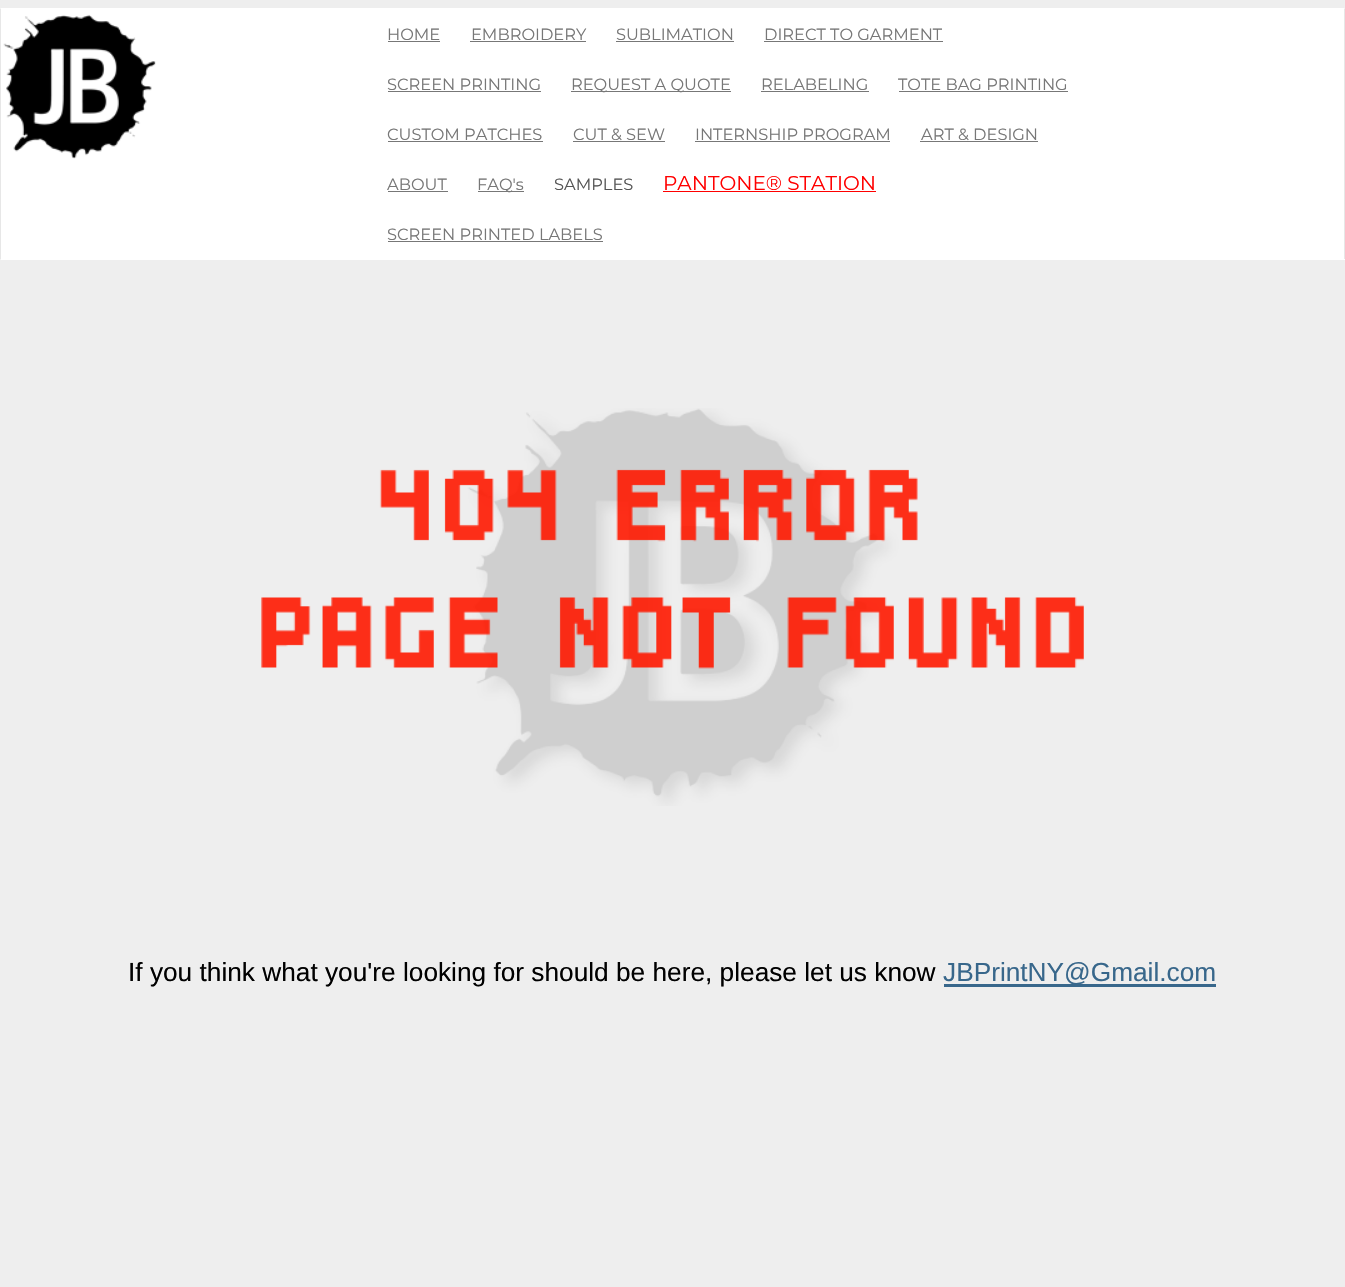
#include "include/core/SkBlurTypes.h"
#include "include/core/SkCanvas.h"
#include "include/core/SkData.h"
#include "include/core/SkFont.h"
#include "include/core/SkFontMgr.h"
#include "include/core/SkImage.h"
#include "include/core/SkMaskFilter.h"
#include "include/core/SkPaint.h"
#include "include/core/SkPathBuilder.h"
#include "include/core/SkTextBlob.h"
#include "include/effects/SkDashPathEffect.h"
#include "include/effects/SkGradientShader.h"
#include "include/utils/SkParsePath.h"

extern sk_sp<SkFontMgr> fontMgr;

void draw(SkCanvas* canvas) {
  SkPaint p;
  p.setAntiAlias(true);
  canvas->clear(SkColorSetRGB(238, 238, 238));
  p.setColor(SK_ColorWHITE);
  canvas->drawRect(SkRect::MakeLTRB(0, 8, 1345, 259), p);
  p.setColor(SkColorSetRGB(231, 231, 231));
  canvas->drawPath(SkPathBuilder().moveTo(1345, 8).lineTo(1345, 260).lineTo(1344, 259).lineTo(1344, 9).close().detach(), p);
  p.setColor(SK_ColorWHITE);
  canvas->drawRect(SkRect::MakeLTRB(0, 259, 1345, 260), p);
  p.setColor(SkColorSetRGB(231, 231, 231));
  canvas->drawPath(SkPathBuilder().moveTo(0, 260).lineTo(0, 8).lineTo(1, 9).lineTo(1, 259).close().detach(), p);
  canvas->drawImageRect(SkImages::DeferredFromEncodedData(SkData::MakeFromFileName("images/1.png")), SkRect::MakeLTRB(3, 14, 156, 159), SkSamplingOptions());
  p.setColor(SkColorSetRGB(119, 119, 119));
  canvas->drawRect(SkRect::MakeLTRB(388, 41, 440, 42), p);
  canvas->drawRect(SkRect::MakeLTRB(470, 41, 586, 42), p);
  canvas->drawRect(SkRect::MakeLTRB(616, 41, 734, 42), p);
  canvas->drawRect(SkRect::MakeLTRB(764, 41, 943, 42), p);
  canvas->drawRect(SkRect::MakeLTRB(388, 91, 541, 92), p);
  canvas->drawRect(SkRect::MakeLTRB(571, 91, 731, 92), p);
  canvas->drawRect(SkRect::MakeLTRB(761, 91, 869, 92), p);
  canvas->drawRect(SkRect::MakeLTRB(899, 91, 1068, 92), p);
  canvas->drawRect(SkRect::MakeLTRB(388, 141, 543, 142), p);
  canvas->drawRect(SkRect::MakeLTRB(573, 141, 665, 142), p);
  canvas->drawRect(SkRect::MakeLTRB(695, 141, 890, 142), p);
  canvas->drawRect(SkRect::MakeLTRB(920, 141, 1038, 142), p);
  canvas->drawRect(SkRect::MakeLTRB(388, 191, 448, 192), p);
  canvas->drawRect(SkRect::MakeLTRB(478, 191, 524, 192), p);
  p.setColor(SkColorSetRGB(255, 0, 0));
  canvas->drawRect(SkRect::MakeLTRB(663, 191, 876, 192), p);
  p.setColor(SkColorSetRGB(119, 119, 119));
  canvas->drawRect(SkRect::MakeLTRB(388, 241, 603, 242), p);
  canvas->drawImageRect(SkImages::DeferredFromEncodedData(SkData::MakeFromFileName("images/2.png")), SkRect::MakeLTRB(261, 408, 1084, 806), SkSamplingOptions());
  p.setColor(SkColorSetRGB(56, 103, 139));
  canvas->drawRect(SkRect::MakeLTRB(944, 984, 1216, 987), p);
  SkFont font1(fontMgr->matchFamilyStyle("Montserrat", SkFontStyle::Normal()), 16.25f);
  font1.setSubpixel(true);
  p.setColor(SkColorSetRGB(119, 119, 119));
  canvas->drawString("HOME", 387, 40, font1, p);
  canvas->drawString("EMBROIDERY", 471, 40, font1, p);
  canvas->drawString("SUBLIMATION", 616, 40, font1, p);
  canvas->drawString("DIRECT TO GARMENT", 764, 40, font1, p);
  canvas->drawString("SCREEN PRINTING", 387, 90, font1, p);
  canvas->drawString("REQUEST A QUOTE", 571, 90, font1, p);
  canvas->drawString("RELABELING", 761, 90, font1, p);
  canvas->drawString("TOTE BAG PRINTING", 898, 90, font1, p);
  canvas->drawString("CUSTOM PATCHES", 387, 140, font1, p);
  canvas->drawString("CUT & SEW", 573, 140, font1, p);
  canvas->drawString("INTERNSHIP PROGRAM", 695, 140, font1, p);
  canvas->drawString("ART & DESIGN", 921, 140, font1, p);
  canvas->drawString("ABOUT", 387, 190, font1, p);
  canvas->drawString("FAQ's", 477, 190, font1, p);
  p.setColor(SkColorSetRGB(85, 85, 85));
  canvas->drawString("SAMPLES", 554, 190, font1, p);
  SkFont font2(fontMgr->matchFamilyStyle("Montserrat", SkFontStyle::Normal()), 20);
  font2.setSubpixel(true);
  p.setColor(SkColorSetRGB(255, 0, 0));
  canvas->drawString("PANTONE® STATION", 663, 190, font2, p);
  p.setColor(SkColorSetRGB(119, 119, 119));
  canvas->drawString("SCREEN PRINTED LABELS", 387, 240, font1, p);
  SkFont font3(fontMgr->matchFamilyStyle("Liberation Sans", SkFontStyle::Normal()), 26.25f);
  font3.setSubpixel(true);
  p.setColor(SK_ColorBLACK);
  canvas->drawString("If you think what you're looking for should be here, please let us know", 128, 981, font3, p);
  p.setColor(SkColorSetRGB(56, 103, 139));
  canvas->drawString("JBPrintNY@Gmail.com", 943, 981, font3, p);
}
